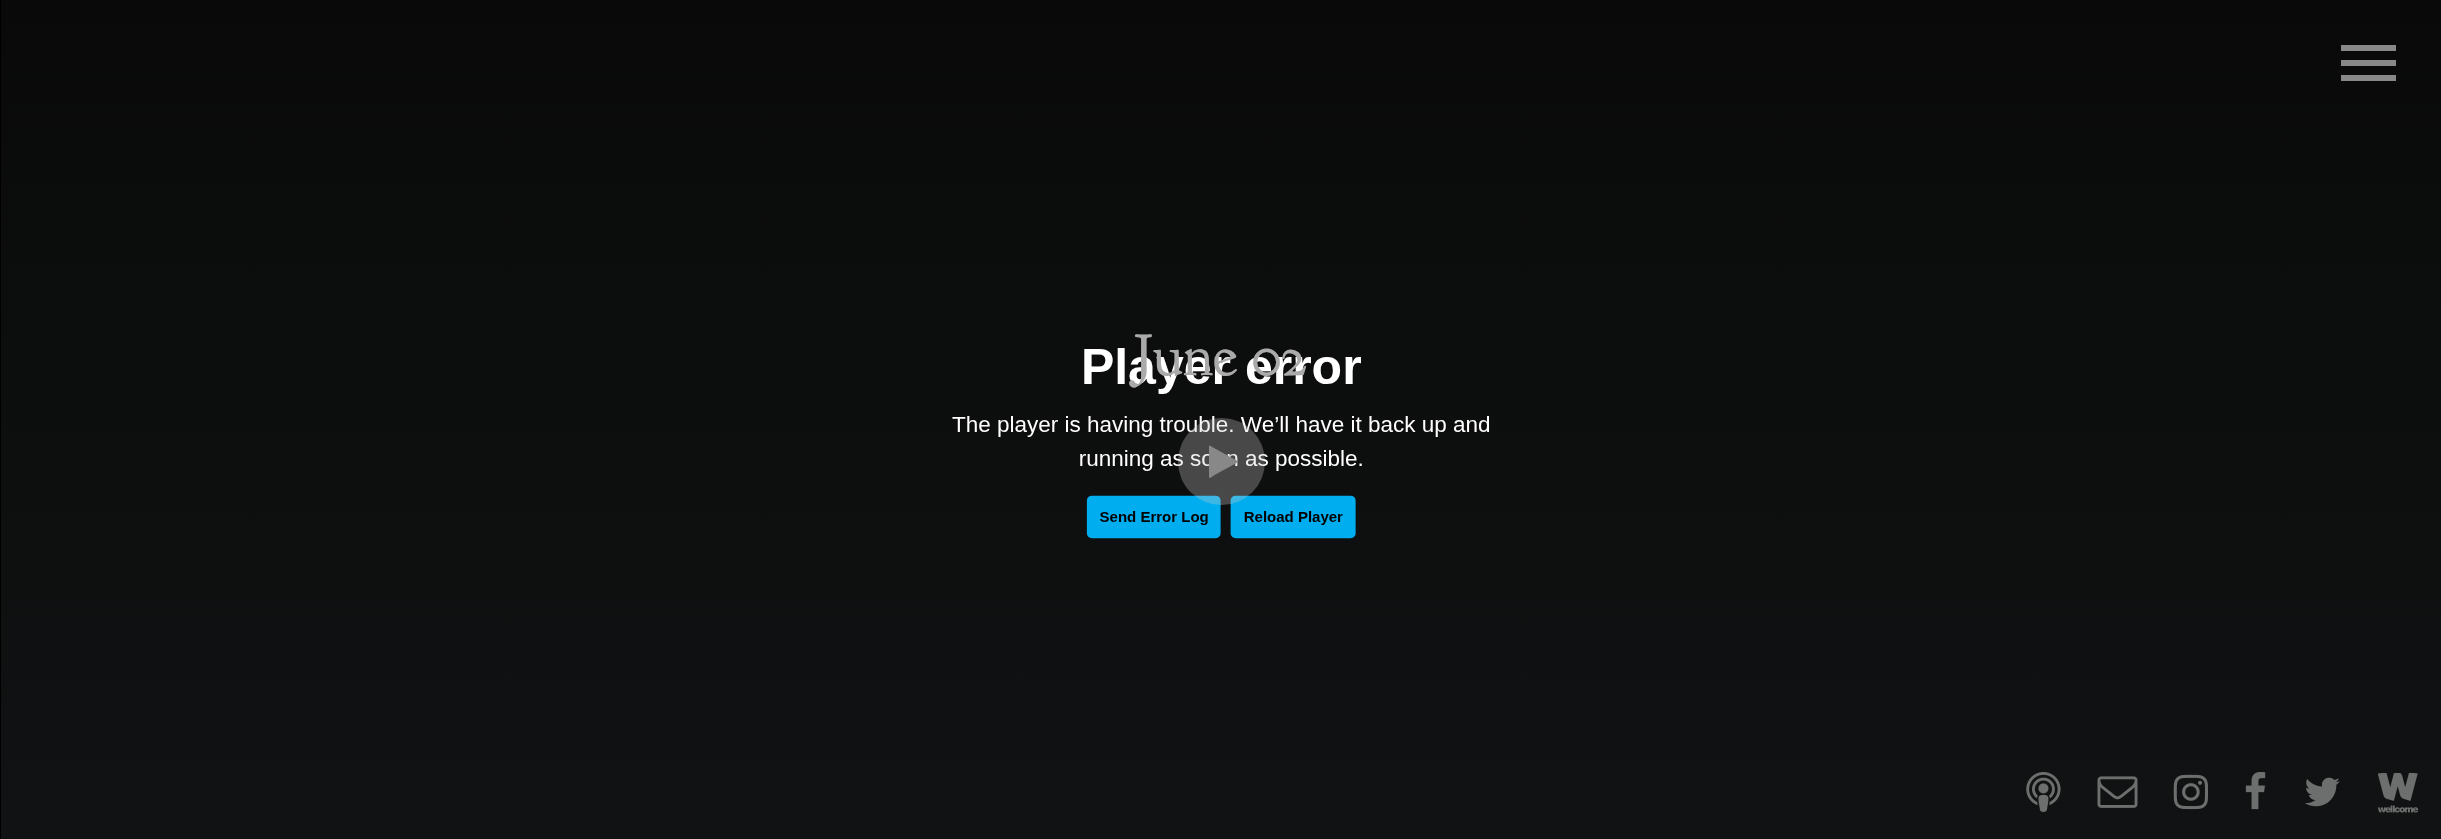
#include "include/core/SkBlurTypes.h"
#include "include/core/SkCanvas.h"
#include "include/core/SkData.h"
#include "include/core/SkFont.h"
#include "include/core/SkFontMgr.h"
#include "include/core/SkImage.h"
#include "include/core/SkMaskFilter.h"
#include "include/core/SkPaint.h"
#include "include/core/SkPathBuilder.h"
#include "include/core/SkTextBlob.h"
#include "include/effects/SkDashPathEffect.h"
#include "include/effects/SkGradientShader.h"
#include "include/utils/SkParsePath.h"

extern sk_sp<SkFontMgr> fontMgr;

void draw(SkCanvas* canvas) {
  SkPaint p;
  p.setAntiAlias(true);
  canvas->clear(SK_ColorBLACK);
  canvas->drawImageRect(SkImages::DeferredFromEncodedData(SkData::MakeFromFileName("images/1.png")), SkRect::MakeLTRB(1, 0, 2441, 839), SkSamplingOptions());
  p.setColor(SkColorSetRGB(136, 136, 136));
  canvas->drawRect(SkRect::MakeLTRB(2341, 45, 2396, 51), p);
  canvas->drawRect(SkRect::MakeLTRB(2341, 60, 2396, 66), p);
  canvas->drawRect(SkRect::MakeLTRB(2341, 75, 2396, 81), p);
  p.setColor(SkColorSetARGB(77, 204, 204, 204));
  canvas->drawCircle(1221.5f, 461.5f, 43.5f, p);
  p.setColor(SkColorSetRGB(136, 136, 136));
  canvas->drawPath(SkPathBuilder().moveTo(1237.5f, 462.5f).lineTo(1214.5f, 475).cubicTo(1214, 475.5f, 1209.5f, 479, 1209, 477.5f).lineTo(1209, 446).lineTo(1209.5f, 445.5f).lineTo(1237.5f, 461).lineTo(1238, 461.5f).close().detach(), p);
  canvas->drawImageRect(SkImages::DeferredFromEncodedData(SkData::MakeFromFileName("images/2.png")), SkRect::MakeLTRB(2026, 772, 2061, 812), SkSamplingOptions());
  canvas->drawImageRect(SkImages::DeferredFromEncodedData(SkData::MakeFromFileName("images/3.png")), SkRect::MakeLTRB(2097, 776, 2138, 808), SkSamplingOptions());
  canvas->drawImageRect(SkImages::DeferredFromEncodedData(SkData::MakeFromFileName("images/4.png")), SkRect::MakeLTRB(2173, 774, 2208, 810), SkSamplingOptions());
  canvas->drawImageRect(SkImages::DeferredFromEncodedData(SkData::MakeFromFileName("images/5.png")), SkRect::MakeLTRB(2245, 772, 2266, 810), SkSamplingOptions());
  canvas->drawImageRect(SkImages::DeferredFromEncodedData(SkData::MakeFromFileName("images/6.png")), SkRect::MakeLTRB(2305, 777, 2340, 807), SkSamplingOptions());
  canvas->drawImageRect(SkImages::DeferredFromEncodedData(SkData::MakeFromFileName("images/7.png")), SkRect::MakeLTRB(2378, 773, 2419, 813), SkSamplingOptions());
  SkFont font1(fontMgr->matchFamilyStyle("Goudy Bookletter 1911", SkFontStyle::Normal()), 60);
  font1.setSubpixel(true);
  p.setColor(SkColorSetRGB(170, 170, 170));
  canvas->drawString("June 02", 1134, 375, font1, p);
}
